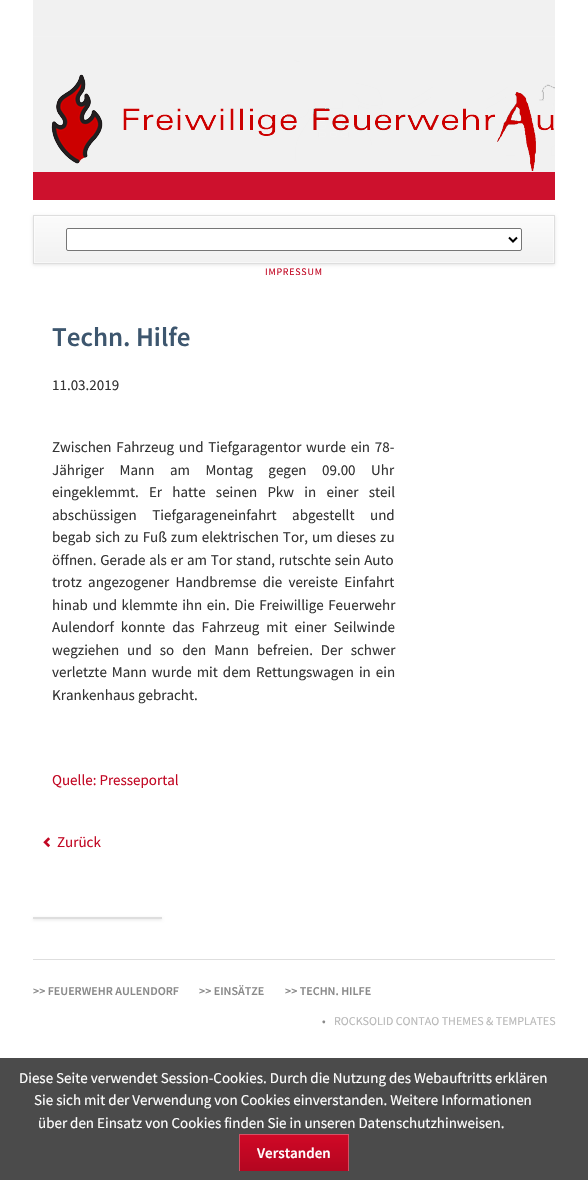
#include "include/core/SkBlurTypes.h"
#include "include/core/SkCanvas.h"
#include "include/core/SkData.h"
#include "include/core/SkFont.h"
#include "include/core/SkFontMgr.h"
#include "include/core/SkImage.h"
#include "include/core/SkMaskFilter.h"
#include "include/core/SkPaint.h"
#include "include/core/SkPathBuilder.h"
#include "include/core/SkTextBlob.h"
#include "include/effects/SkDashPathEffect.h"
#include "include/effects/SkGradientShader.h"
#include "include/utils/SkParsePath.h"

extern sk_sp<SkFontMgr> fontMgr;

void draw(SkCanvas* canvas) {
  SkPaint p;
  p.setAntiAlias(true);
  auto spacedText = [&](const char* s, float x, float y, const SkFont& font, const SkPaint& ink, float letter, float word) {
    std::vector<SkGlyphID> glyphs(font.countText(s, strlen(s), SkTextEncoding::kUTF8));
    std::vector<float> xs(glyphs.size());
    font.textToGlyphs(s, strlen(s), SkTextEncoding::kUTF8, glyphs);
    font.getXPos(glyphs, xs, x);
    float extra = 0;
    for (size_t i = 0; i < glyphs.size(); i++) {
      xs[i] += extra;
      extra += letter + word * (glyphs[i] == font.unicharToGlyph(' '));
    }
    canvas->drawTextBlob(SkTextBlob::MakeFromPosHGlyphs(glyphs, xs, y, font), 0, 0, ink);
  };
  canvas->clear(SK_ColorWHITE);
  canvas->drawImageRect(SkImages::DeferredFromEncodedData(SkData::MakeFromFileName("images/1.png")), SkRect::MakeLTRB(33, 0, 555, 200), SkSamplingOptions());
  p.setColor(SkColorSetARGB(26, 0, 0, 0));
  p.setMaskFilter(SkMaskFilter::MakeBlur(kNormal_SkBlurStyle, 1.5f));
  canvas->drawRect(SkRect::MakeLTRB(33, 216, 555, 265), p);
  p.setMaskFilter(nullptr);
  {
    const SkColor colors[] = {SkColorSetRGB(251, 251, 251), SkColorSetRGB(241, 241, 241)};
    const float stops[] = {0, 1};
    const SkPoint ends[] = {{294, 216}, {294, 263}};
    p.setShader(SkGradientShader::MakeLinear(ends, colors, stops, 2, SkTileMode::kClamp));
    p.setAlpha(255);
  }
  canvas->drawRect(SkRect::MakeLTRB(34, 216, 554, 263), p);
  p.setStyle(SkPaint::kStroke_Style);
  p.setStrokeWidth(1);
  p.setShader(nullptr);
  p.setColor(SkColorSetARGB(128, 255, 255, 255));
  canvas->drawRect(SkRect::MakeLTRB(34.5f, 216.5f, 553.5f, 262.5f), p);
  p.setColor(SkColorSetRGB(222, 222, 222));
  canvas->drawRect(SkRect::MakeLTRB(33.5f, 215.5f, 554.5f, 263.5f), p);
  p.setStyle(SkPaint::kFill_Style);
  p.setColor(SK_ColorWHITE);
  canvas->drawRoundRect(SkRect::MakeLTRB(66.5f, 228.5f, 521.5f, 250.5f), 1.5f, 1.5f, p);
  p.setStyle(SkPaint::kStroke_Style);
  p.setColor(SkColorSetRGB(118, 118, 118));
  canvas->drawRoundRect(SkRect::MakeLTRB(66.5f, 228.5f, 521.5f, 250.5f), 1.5f, 1.5f, p);
  p.setStrokeWidth(2);
  p.setColor(SK_ColorBLACK);
  canvas->drawPath(SkPathBuilder().moveTo(509, 237.5f).lineTo(513, 241.5f).lineTo(517, 237.5f).detach(), p);
  canvas->drawImageRect(SkImages::DeferredFromEncodedData(SkData::MakeFromFileName("images/2.png")), SkRect::MakeLTRB(43, 837, 50, 848), SkSamplingOptions());
  p.setStyle(SkPaint::kFill_Style);
  p.setColor(SkColorSetARGB(26, 0, 0, 0));
  p.setMaskFilter(SkMaskFilter::MakeBlur(kNormal_SkBlurStyle, 1.5f));
  canvas->drawRect(SkRect::MakeLTRB(33, 918, 162, 920), p);
  p.setMaskFilter(nullptr);
  p.setColor(SkColorSetRGB(222, 222, 222));
  canvas->drawRect(SkRect::MakeLTRB(33, 917, 162, 919), p);
  canvas->drawRect(SkRect::MakeLTRB(33, 959, 555, 960), p);
  p.setColor(SkColorSetRGB(75, 75, 75));
  canvas->drawRect(SkRect::MakeLTRB(0, 1058, 588, 1180), p);
  {
    const SkColor colors[] = {SkColorSetRGB(209, 8, 38), SkColorSetRGB(179, 6, 32)};
    const float stops[] = {0, 1};
    const SkPoint ends[] = {{294, 1134}, {294, 1171}};
    p.setShader(SkGradientShader::MakeLinear(ends, colors, stops, 2, SkTileMode::kClamp));
    p.setAlpha(255);
  }
  canvas->drawRect(SkRect::MakeLTRB(240, 1135, 348, 1171), p);
  p.setShader(nullptr);
  p.setColor(SkColorSetRGB(212, 81, 101));
  canvas->drawRect(SkRect::MakeLTRB(348, 1134, 349, 1171), p);
  canvas->save();
  canvas->clipRect(SkRect::MakeLTRB(239, 1134, 349, 1171));
  canvas->drawPath(SkPathBuilder(SkPathFillType::kEvenOdd).moveTo(140, 1035).lineTo(448, 1035).lineTo(448, 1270).lineTo(140, 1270).close().moveTo(240, 1135).lineTo(350, 1135).lineTo(350, 1172).lineTo(240, 1172).close().detach(), p);
  canvas->restore();
  SkFont font1(fontMgr->matchFamilyStyle("Source Sans Pro", SkFontStyle::Normal()), 10);
  font1.setSubpixel(true);
  p.setColor(SkColorSetRGB(194, 7, 35));
  spacedText("IMPRESSUM", 265, 275, font1, p, 0.75f, 0);
  SkFont font2(fontMgr->matchFamilyStyle("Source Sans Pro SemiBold", SkFontStyle(600, SkFontStyle::kNormal_Width, SkFontStyle::kUpright_Slant)), 27);
  font2.setSubpixel(true);
  p.setColor(SkColorSetRGB(61, 86, 110));
  canvas->drawString("Techn. Hilfe", 52, 346, font2, p);
  SkFont font3(fontMgr->matchFamilyStyle("Source Sans Pro", SkFontStyle::Normal()), 15);
  font3.setSubpixel(true);
  p.setColor(SkColorSetRGB(52, 52, 52));
  canvas->drawString("11.03.2019", 52, 390, font3, p);
  spacedText("Zwischen Fahrzeug und Tiefgaragentor wurde ein 78-", 52, 452, font3, p, 0, 1.75f);
  spacedText("Jähriger Mann am Montag gegen 09.00 Uhr", 52, 475, font3, p, 0, 12.5f);
  spacedText("eingeklemmt. Er hatte seinen Pkw in einer steil", 52, 497, font3, p, 0, 7.25f);
  spacedText("abschüssigen Tiefgarageneinfahrt abgestellt und", 52, 520, font3, p, 0, 12.5f);
  spacedText("begab sich zu Fuß zum elektrischen Tor, um dieses zu", 52, 542, font3, p, 0, 1);
  spacedText("öffnen. Gerade als er am Tor stand, rutschte sein Auto", 52, 565, font3, p, 0, 0.75f);
  spacedText("trotz angezogener Handbremse die vereiste Einfahrt", 52, 587, font3, p, 0, 3.25f);
  spacedText("hinab und klemmte ihn ein. Die Freiwillige Feuerwehr", 52, 610, font3, p, 0, 1.5f);
  spacedText("Aulendorf konnte das Fahrzeug mit einer Seilwinde", 52, 632, font3, p, 0, 4);
  spacedText("wegziehen und so den Mann befreien. Der schwer", 52, 655, font3, p, 0, 5);
  spacedText("verletzte Mann wurde mit dem Rettungswagen in ein", 52, 677, font3, p, 0, 2);
  canvas->drawString("Krankenhaus gebracht.", 52, 700, font3, p);
  p.setColor(SkColorSetRGB(194, 7, 35));
  canvas->drawString("Quelle: Presseportal", 52, 785, font3, p);
  canvas->drawString("Zurück", 57, 847, font3, p);
  SkFont font4(fontMgr->matchFamilyStyle("Source Sans Pro SemiBold", SkFontStyle(600, SkFontStyle::kNormal_Width, SkFontStyle::kUpright_Slant)), 12);
  font4.setSubpixel(true);
  p.setColor(SkColorSetRGB(138, 138, 138));
  canvas->drawString(">> FEUERWEHR AULENDORF", 33, 995, font4, p);
  canvas->drawString(">> EINSÄTZE", 199, 995, font4, p);
  canvas->drawString(">> TECHN. HILFE", 285, 995, font4, p);
  SkFont font5(fontMgr->matchFamilyStyle("Source Sans Pro", SkFontStyle::Normal()), 12);
  font5.setSubpixel(true);
  canvas->drawString("•", 322, 1025, font5, p);
  p.setColor(SkColorSetRGB(184, 184, 184));
  canvas->drawString("ROCKSOLID CONTAO THEMES & TEMPLATES", 334, 1025, font5, p);
  p.setColor(SK_ColorWHITE);
  canvas->drawString("Diese Seite verwendet Session-Cookies. Durch die Nutzung des Webauftritts erklären", 19, 1083, font3, p);
  canvas->drawString("Sie sich mit der Verwendung von Cookies einverstanden. Weitere Informationen", 34, 1105, font3, p);
  canvas->drawString("über den Einsatz von Cookies finden Sie in unseren Datenschutzhinweisen.", 38, 1128, font3, p);
  SkFont font6(fontMgr->matchFamilyStyle("Source Sans Pro SemiBold", SkFontStyle(600, SkFontStyle::kNormal_Width, SkFontStyle::kUpright_Slant)), 15);
  font6.setSubpixel(true);
  canvas->drawString("Verstanden", 257, 1158, font6, p);
}
